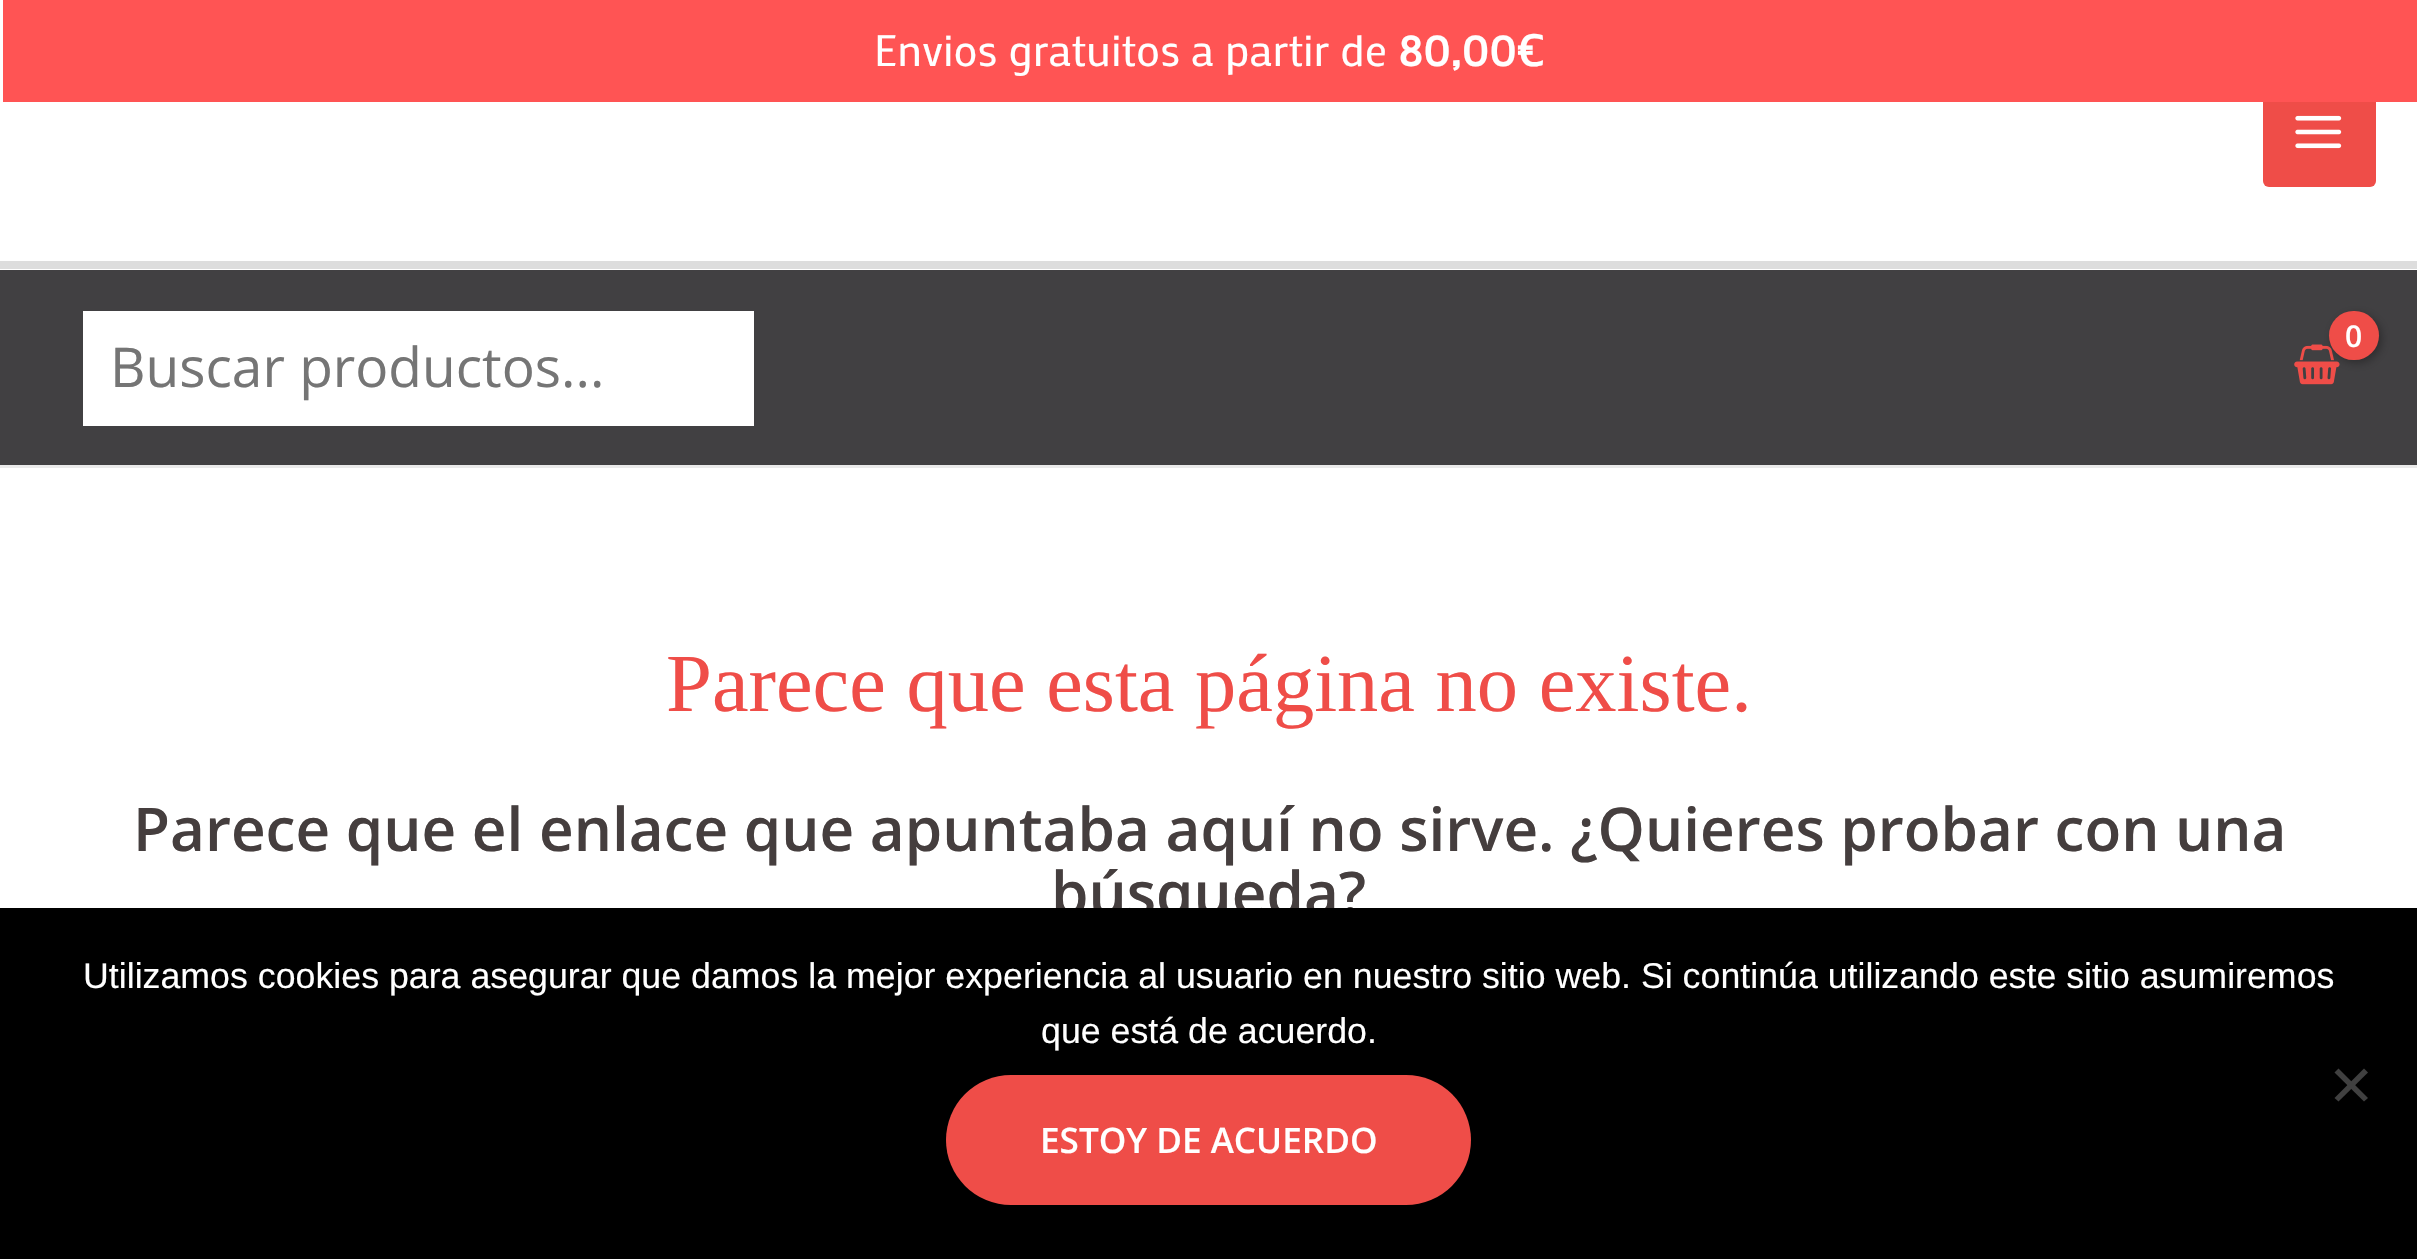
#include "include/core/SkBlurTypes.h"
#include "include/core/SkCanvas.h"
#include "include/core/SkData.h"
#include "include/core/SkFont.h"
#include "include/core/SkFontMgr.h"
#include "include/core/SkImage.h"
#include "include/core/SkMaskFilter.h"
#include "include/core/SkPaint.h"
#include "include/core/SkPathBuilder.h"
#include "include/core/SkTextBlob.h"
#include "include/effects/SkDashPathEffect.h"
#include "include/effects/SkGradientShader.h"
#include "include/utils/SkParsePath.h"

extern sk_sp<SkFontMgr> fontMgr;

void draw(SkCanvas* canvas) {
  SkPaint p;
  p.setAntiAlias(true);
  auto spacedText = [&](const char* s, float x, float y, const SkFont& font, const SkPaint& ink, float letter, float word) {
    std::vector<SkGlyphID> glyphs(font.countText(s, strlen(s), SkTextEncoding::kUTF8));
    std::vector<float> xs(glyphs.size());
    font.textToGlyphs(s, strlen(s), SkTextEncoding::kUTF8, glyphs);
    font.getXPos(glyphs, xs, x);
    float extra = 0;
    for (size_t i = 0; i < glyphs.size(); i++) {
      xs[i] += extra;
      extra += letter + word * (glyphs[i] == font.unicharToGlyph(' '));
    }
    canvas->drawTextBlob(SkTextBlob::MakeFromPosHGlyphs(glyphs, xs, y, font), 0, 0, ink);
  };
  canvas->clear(SK_ColorWHITE);
  p.setColor(SkColorSetRGB(239, 77, 72));
  canvas->drawRoundRect(SkRect::MakeLTRB(2263, 74, 2376, 187), 6, 6, p);
  p.setColor(SkColorSetRGB(255, 84, 84));
  canvas->drawRect(SkRect::MakeLTRB(3, 0, 2417, 102), p);
  p.setColor(SkColorSetRGB(221, 221, 221));
  canvas->drawRect(SkRect::MakeLTRB(0, 261, 2417, 269), p);
  canvas->drawImageRect(SkImages::DeferredFromEncodedData(SkData::MakeFromFileName("images/1.png")), SkRect::MakeLTRB(2295, 115, 2342, 149), SkSamplingOptions());
  p.setColor(SkColorSetRGB(65, 64, 66));
  canvas->drawRect(SkRect::MakeLTRB(0, 270, 2417, 465), p);
  p.setColor(SkColorSetRGB(234, 234, 234));
  canvas->drawRect(SkRect::MakeLTRB(0, 465, 2417, 468), p);
  canvas->drawImageRect(SkImages::DeferredFromEncodedData(SkData::MakeFromFileName("images/2.png")), SkRect::MakeLTRB(2294, 344, 2340, 385), SkSamplingOptions());
  p.setColor(SkColorSetARGB(77, 0, 0, 0));
  p.setMaskFilter(SkMaskFilter::MakeBlur(kNormal_SkBlurStyle, 4));
  canvas->drawRoundRect(SkRect::MakeLTRB(2332, 314, 2382, 363), 24.5f, 24.5f, p);
  p.setMaskFilter(nullptr);
  p.setColor(SkColorSetRGB(239, 77, 72));
  canvas->drawRoundRect(SkRect::MakeLTRB(2329, 311, 2379, 360), 24.5f, 24.5f, p);
  p.setColor(SK_ColorWHITE);
  canvas->drawRect(SkRect::MakeLTRB(83, 311, 754, 426), p);
  SkFont font1(fontMgr->matchFamilyStyle("Mako", SkFontStyle::Normal()), 44);
  font1.setSubpixel(true);
  canvas->drawString("Envios gratuitos a partir de", 874, 66, font1, p);
  SkFont font2(fontMgr->matchFamilyStyle("Mako", SkFontStyle::Bold()), 44);
  font2.setSubpixel(true);
  canvas->drawString("80,00€", 1398, 66, font2, p);
  SkFont font3(fontMgr->matchFamilyStyle("Open Sans", SkFontStyle(600, SkFontStyle::kNormal_Width, SkFontStyle::kUpright_Slant)), 30);
  font3.setSubpixel(true);
  spacedText("0", 2345, 347, font3, p, -1, 0);
  SkFont font4(fontMgr->matchFamilyStyle("Open Sans", SkFontStyle::Normal()), 55);
  font4.setSubpixel(true);
  p.setColor(SkColorSetRGB(117, 117, 117));
  canvas->drawString("Buscar productos...", 110, 387, font4, p);
  SkFont font5(fontMgr->matchFamilyStyle("Liberation Serif", SkFontStyle::Normal()), 82.5f);
  font5.setSubpixel(true);
  p.setColor(SkColorSetRGB(239, 77, 72));
  canvas->drawString("Parece que esta página no existe.", 666, 711, font5, p);
  SkFont font6(fontMgr->matchFamilyStyle("Open Sans", SkFontStyle(600, SkFontStyle::kNormal_Width, SkFontStyle::kUpright_Slant)), 60.2f);
  font6.setSubpixel(true);
  p.setColor(SkColorSetRGB(69, 62, 62));
  canvas->drawString("Parece que el enlace que apuntaba aquí no sirve. ¿Quieres probar con una", 133, 851, font6, p);
  canvas->drawString("búsqueda?", 1051, 915, font6, p);
  p.setColor(SK_ColorBLACK);
  canvas->drawRect(SkRect::MakeLTRB(0, 908, 2417, 1259), p);
  SkFont font7(fontMgr->matchFamilyStyle("Liberation Sans", SkFontStyle::Normal()), 35.75f);
  font7.setSubpixel(true);
  p.setColor(SK_ColorWHITE);
  canvas->drawString("Utilizamos cookies para asegurar que damos la mejor experiencia al usuario en nuestro sitio web. Si continúa utilizando este sitio asumiremos", 83, 988, font7, p);
  canvas->drawString("que está de acuerdo.", 1041, 1043, font7, p);
  p.setColor(SkColorSetRGB(64, 64, 64));
  canvas->drawPath(SkPathBuilder().moveTo(2364, 1068.5f).lineTo(2368, 1072.5f).lineTo(2338.5f, 1101.5f).lineTo(2334.5f, 1098).close().detach(), p);
  canvas->drawPath(SkPathBuilder().moveTo(2334.5f, 1072.5f).lineTo(2338.5f, 1068.5f).lineTo(2368, 1098).lineTo(2364, 1101.5f).close().detach(), p);
  p.setColor(SkColorSetRGB(239, 77, 72));
  canvas->drawRoundRect(SkRect::MakeLTRB(946, 1075, 1471, 1205), 65, 65, p);
  SkFont font8(fontMgr->matchFamilyStyle("Open Sans", SkFontStyle(600, SkFontStyle::kNormal_Width, SkFontStyle::kUpright_Slant)), 35.1f);
  font8.setSubpixel(true);
  p.setColor(SK_ColorWHITE);
  canvas->drawString("ESTOY DE ACUERDO", 1040, 1153, font8, p);
}
